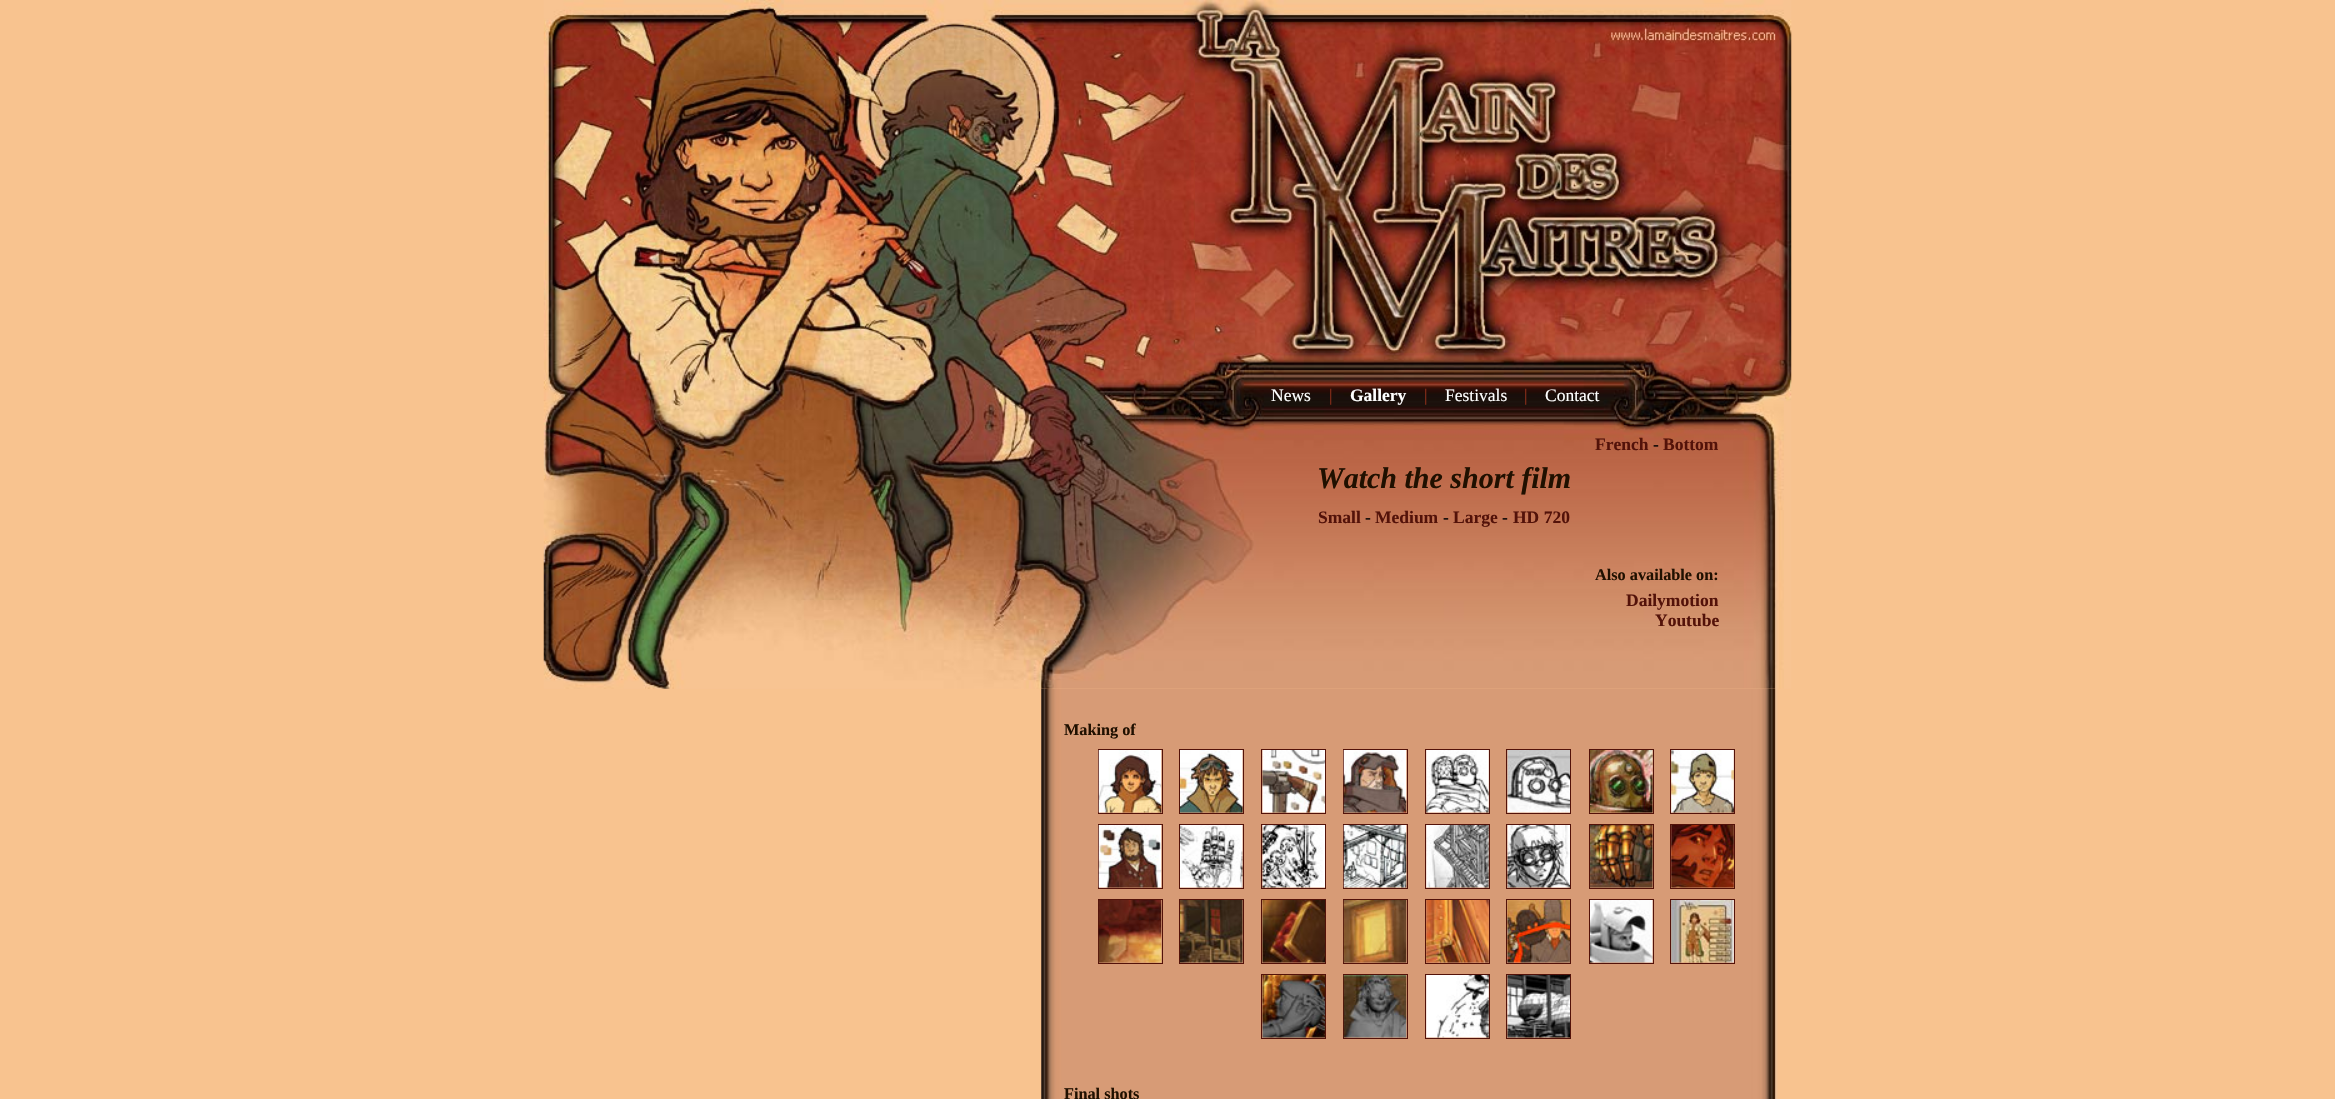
#include "include/core/SkBlurTypes.h"
#include "include/core/SkCanvas.h"
#include "include/core/SkData.h"
#include "include/core/SkFont.h"
#include "include/core/SkFontMgr.h"
#include "include/core/SkImage.h"
#include "include/core/SkMaskFilter.h"
#include "include/core/SkPaint.h"
#include "include/core/SkPathBuilder.h"
#include "include/core/SkTextBlob.h"
#include "include/effects/SkDashPathEffect.h"
#include "include/effects/SkGradientShader.h"
#include "include/utils/SkParsePath.h"

extern sk_sp<SkFontMgr> fontMgr;

void draw(SkCanvas* canvas) {
  SkPaint p;
  p.setAntiAlias(true);
  canvas->clear(SkColorSetRGB(248, 195, 143));
  canvas->drawImageRect(SkImages::DeferredFromEncodedData(SkData::MakeFromFileName("images/1.png")), SkRect::MakeLTRB(543, 0, 1792, 689), SkSamplingOptions());
  canvas->drawImageRect(SkImages::DeferredFromEncodedData(SkData::MakeFromFileName("images/2.png")), SkRect::MakeLTRB(1195, 22, 1779, 353), SkSamplingOptions());
  canvas->drawImageRect(SkImages::DeferredFromEncodedData(SkData::MakeFromFileName("images/3.png")), SkRect::MakeLTRB(1041, 688, 1778, 1099), SkSamplingOptions());
  p.setStyle(SkPaint::kStroke_Style);
  p.setStrokeWidth(1);
  p.setColor(SkColorSetRGB(83, 18, 9));
  canvas->drawRect(SkRect::MakeLTRB(1098.5f, 749.5f, 1162.5f, 813.5f), p);
  canvas->drawRect(SkRect::MakeLTRB(1179.5f, 749.5f, 1243.5f, 813.5f), p);
  canvas->drawRect(SkRect::MakeLTRB(1261.5f, 749.5f, 1325.5f, 813.5f), p);
  canvas->drawRect(SkRect::MakeLTRB(1343.5f, 749.5f, 1407.5f, 813.5f), p);
  canvas->drawRect(SkRect::MakeLTRB(1425.5f, 749.5f, 1489.5f, 813.5f), p);
  canvas->drawRect(SkRect::MakeLTRB(1506.5f, 749.5f, 1570.5f, 813.5f), p);
  canvas->drawRect(SkRect::MakeLTRB(1589.5f, 749.5f, 1653.5f, 813.5f), p);
  canvas->drawRect(SkRect::MakeLTRB(1670.5f, 749.5f, 1734.5f, 813.5f), p);
  canvas->drawImageRect(SkImages::DeferredFromEncodedData(SkData::MakeFromFileName("images/4.png")), SkRect::MakeLTRB(1098, 750, 1162, 813), SkSamplingOptions());
  canvas->drawImageRect(SkImages::DeferredFromEncodedData(SkData::MakeFromFileName("images/5.png")), SkRect::MakeLTRB(1180, 750, 1243, 813), SkSamplingOptions());
  canvas->drawImageRect(SkImages::DeferredFromEncodedData(SkData::MakeFromFileName("images/6.png")), SkRect::MakeLTRB(1262, 750, 1325, 813), SkSamplingOptions());
  canvas->drawImageRect(SkImages::DeferredFromEncodedData(SkData::MakeFromFileName("images/7.png")), SkRect::MakeLTRB(1343, 750, 1407, 813), SkSamplingOptions());
  canvas->drawImageRect(SkImages::DeferredFromEncodedData(SkData::MakeFromFileName("images/8.png")), SkRect::MakeLTRB(1426, 750, 1489, 813), SkSamplingOptions());
  canvas->drawImageRect(SkImages::DeferredFromEncodedData(SkData::MakeFromFileName("images/9.png")), SkRect::MakeLTRB(1507, 750, 1570, 813), SkSamplingOptions());
  canvas->drawImageRect(SkImages::DeferredFromEncodedData(SkData::MakeFromFileName("images/10.png")), SkRect::MakeLTRB(1590, 750, 1653, 813), SkSamplingOptions());
  canvas->drawImageRect(SkImages::DeferredFromEncodedData(SkData::MakeFromFileName("images/11.png")), SkRect::MakeLTRB(1671, 750, 1734, 813), SkSamplingOptions());
  canvas->drawRect(SkRect::MakeLTRB(1098.5f, 824.5f, 1162.5f, 888.5f), p);
  canvas->drawRect(SkRect::MakeLTRB(1179.5f, 824.5f, 1243.5f, 888.5f), p);
  canvas->drawRect(SkRect::MakeLTRB(1261.5f, 824.5f, 1325.5f, 888.5f), p);
  canvas->drawRect(SkRect::MakeLTRB(1343.5f, 824.5f, 1407.5f, 888.5f), p);
  canvas->drawRect(SkRect::MakeLTRB(1425.5f, 824.5f, 1489.5f, 888.5f), p);
  canvas->drawRect(SkRect::MakeLTRB(1506.5f, 824.5f, 1570.5f, 888.5f), p);
  canvas->drawRect(SkRect::MakeLTRB(1589.5f, 824.5f, 1653.5f, 888.5f), p);
  canvas->drawRect(SkRect::MakeLTRB(1670.5f, 824.5f, 1734.5f, 888.5f), p);
  canvas->drawImageRect(SkImages::DeferredFromEncodedData(SkData::MakeFromFileName("images/12.png")), SkRect::MakeLTRB(1098, 825, 1162, 888), SkSamplingOptions());
  canvas->drawImageRect(SkImages::DeferredFromEncodedData(SkData::MakeFromFileName("images/13.png")), SkRect::MakeLTRB(1180, 825, 1243, 888), SkSamplingOptions());
  canvas->drawImageRect(SkImages::DeferredFromEncodedData(SkData::MakeFromFileName("images/14.png")), SkRect::MakeLTRB(1262, 825, 1325, 888), SkSamplingOptions());
  canvas->drawImageRect(SkImages::DeferredFromEncodedData(SkData::MakeFromFileName("images/15.png")), SkRect::MakeLTRB(1343, 825, 1407, 888), SkSamplingOptions());
  canvas->drawImageRect(SkImages::DeferredFromEncodedData(SkData::MakeFromFileName("images/16.png")), SkRect::MakeLTRB(1426, 825, 1489, 888), SkSamplingOptions());
  canvas->drawImageRect(SkImages::DeferredFromEncodedData(SkData::MakeFromFileName("images/17.png")), SkRect::MakeLTRB(1507, 825, 1570, 888), SkSamplingOptions());
  canvas->drawImageRect(SkImages::DeferredFromEncodedData(SkData::MakeFromFileName("images/18.png")), SkRect::MakeLTRB(1590, 825, 1653, 888), SkSamplingOptions());
  canvas->drawImageRect(SkImages::DeferredFromEncodedData(SkData::MakeFromFileName("images/19.png")), SkRect::MakeLTRB(1671, 825, 1734, 888), SkSamplingOptions());
  canvas->drawRect(SkRect::MakeLTRB(1098.5f, 899.5f, 1162.5f, 963.5f), p);
  canvas->drawRect(SkRect::MakeLTRB(1179.5f, 899.5f, 1243.5f, 963.5f), p);
  canvas->drawRect(SkRect::MakeLTRB(1261.5f, 899.5f, 1325.5f, 963.5f), p);
  canvas->drawRect(SkRect::MakeLTRB(1343.5f, 899.5f, 1407.5f, 963.5f), p);
  canvas->drawRect(SkRect::MakeLTRB(1425.5f, 899.5f, 1489.5f, 963.5f), p);
  canvas->drawRect(SkRect::MakeLTRB(1506.5f, 899.5f, 1570.5f, 963.5f), p);
  canvas->drawRect(SkRect::MakeLTRB(1589.5f, 899.5f, 1653.5f, 963.5f), p);
  canvas->drawRect(SkRect::MakeLTRB(1670.5f, 899.5f, 1734.5f, 963.5f), p);
  canvas->drawImageRect(SkImages::DeferredFromEncodedData(SkData::MakeFromFileName("images/20.png")), SkRect::MakeLTRB(1098, 900, 1162, 963), SkSamplingOptions());
  canvas->drawImageRect(SkImages::DeferredFromEncodedData(SkData::MakeFromFileName("images/21.png")), SkRect::MakeLTRB(1180, 900, 1243, 963), SkSamplingOptions());
  canvas->drawImageRect(SkImages::DeferredFromEncodedData(SkData::MakeFromFileName("images/22.png")), SkRect::MakeLTRB(1262, 900, 1325, 963), SkSamplingOptions());
  canvas->drawImageRect(SkImages::DeferredFromEncodedData(SkData::MakeFromFileName("images/23.png")), SkRect::MakeLTRB(1343, 900, 1407, 963), SkSamplingOptions());
  canvas->drawImageRect(SkImages::DeferredFromEncodedData(SkData::MakeFromFileName("images/24.png")), SkRect::MakeLTRB(1426, 900, 1489, 963), SkSamplingOptions());
  canvas->drawImageRect(SkImages::DeferredFromEncodedData(SkData::MakeFromFileName("images/25.png")), SkRect::MakeLTRB(1507, 900, 1570, 963), SkSamplingOptions());
  canvas->drawImageRect(SkImages::DeferredFromEncodedData(SkData::MakeFromFileName("images/26.png")), SkRect::MakeLTRB(1590, 900, 1653, 963), SkSamplingOptions());
  canvas->drawImageRect(SkImages::DeferredFromEncodedData(SkData::MakeFromFileName("images/27.png")), SkRect::MakeLTRB(1671, 900, 1734, 963), SkSamplingOptions());
  canvas->drawRect(SkRect::MakeLTRB(1261.5f, 974.5f, 1325.5f, 1038.5f), p);
  canvas->drawRect(SkRect::MakeLTRB(1343.5f, 974.5f, 1407.5f, 1038.5f), p);
  canvas->drawRect(SkRect::MakeLTRB(1425.5f, 974.5f, 1489.5f, 1038.5f), p);
  canvas->drawRect(SkRect::MakeLTRB(1506.5f, 974.5f, 1570.5f, 1038.5f), p);
  canvas->drawImageRect(SkImages::DeferredFromEncodedData(SkData::MakeFromFileName("images/28.png")), SkRect::MakeLTRB(1262, 975, 1325, 1038), SkSamplingOptions());
  canvas->drawImageRect(SkImages::DeferredFromEncodedData(SkData::MakeFromFileName("images/29.png")), SkRect::MakeLTRB(1343, 975, 1407, 1038), SkSamplingOptions());
  canvas->drawImageRect(SkImages::DeferredFromEncodedData(SkData::MakeFromFileName("images/30.png")), SkRect::MakeLTRB(1426, 975, 1489, 1038), SkSamplingOptions());
  canvas->drawImageRect(SkImages::DeferredFromEncodedData(SkData::MakeFromFileName("images/31.png")), SkRect::MakeLTRB(1507, 975, 1570, 1038), SkSamplingOptions());
  SkFont font1(fontMgr->matchFamilyStyle("Liberation Serif", SkFontStyle::Normal()), 17.5f);
  font1.setSubpixel(true);
  p.setStyle(SkPaint::kFill_Style);
  p.setColor(SK_ColorWHITE);
  canvas->drawString("News", 1271, 401, font1, p);
  p.setColor(SkColorSetRGB(146, 48, 26));
  canvas->drawString("|", 1329, 401, font1, p);
  SkFont font2(fontMgr->matchFamilyStyle("Liberation Serif", SkFontStyle::Bold()), 17.5f);
  font2.setSubpixel(true);
  p.setColor(SK_ColorWHITE);
  canvas->drawString("Gallery", 1350, 401, font2, p);
  p.setColor(SkColorSetRGB(146, 48, 26));
  canvas->drawString("|", 1424, 401, font1, p);
  p.setColor(SK_ColorWHITE);
  canvas->drawString("Festivals", 1445, 401, font1, p);
  p.setColor(SkColorSetRGB(146, 48, 26));
  canvas->drawString("|", 1524, 401, font1, p);
  p.setColor(SK_ColorWHITE);
  canvas->drawString("Contact", 1545, 401, font1, p);
  p.setColor(SkColorSetRGB(83, 18, 9));
  canvas->drawString("French", 1595, 450, font2, p);
  p.setColor(SK_ColorBLACK);
  canvas->drawString("-", 1653, 450, font1, p);
  p.setColor(SkColorSetRGB(83, 18, 9));
  canvas->drawString("Bottom", 1663, 450, font2, p);
  SkFont font3(fontMgr->matchFamilyStyle("Liberation Serif", SkFontStyle::BoldItalic()), 30);
  font3.setSubpixel(true);
  p.setColor(SkColorSetRGB(32, 16, 0));
  canvas->drawString("Watch the short film", 1317, 488, font3, p);
  p.setColor(SkColorSetRGB(83, 18, 9));
  canvas->drawString("Small", 1318, 523, font2, p);
  p.setColor(SK_ColorBLACK);
  canvas->drawString("-", 1365, 523, font1, p);
  p.setColor(SkColorSetRGB(83, 18, 9));
  canvas->drawString("Medium", 1375, 523, font2, p);
  p.setColor(SK_ColorBLACK);
  canvas->drawString("-", 1443, 523, font1, p);
  p.setColor(SkColorSetRGB(83, 18, 9));
  canvas->drawString("Large", 1453, 523, font2, p);
  p.setColor(SK_ColorBLACK);
  canvas->drawString("-", 1502, 523, font1, p);
  p.setColor(SkColorSetRGB(83, 18, 9));
  canvas->drawString("HD 720", 1513, 523, font2, p);
  SkFont font4(fontMgr->matchFamilyStyle("Liberation Serif", SkFontStyle::Bold()), 16.25f);
  font4.setSubpixel(true);
  p.setColor(SkColorSetRGB(32, 16, 0));
  canvas->drawString("Also available on:", 1595, 580, font4, p);
  p.setColor(SkColorSetRGB(83, 18, 9));
  canvas->drawString("Dailymotion", 1626, 606, font2, p);
  canvas->drawString("Youtube", 1655, 626, font2, p);
  p.setColor(SkColorSetRGB(32, 16, 0));
  canvas->drawString("Making of", 1064, 735, font4, p);
  canvas->drawString("Final shots", 1064, 1099, font4, p);
}
